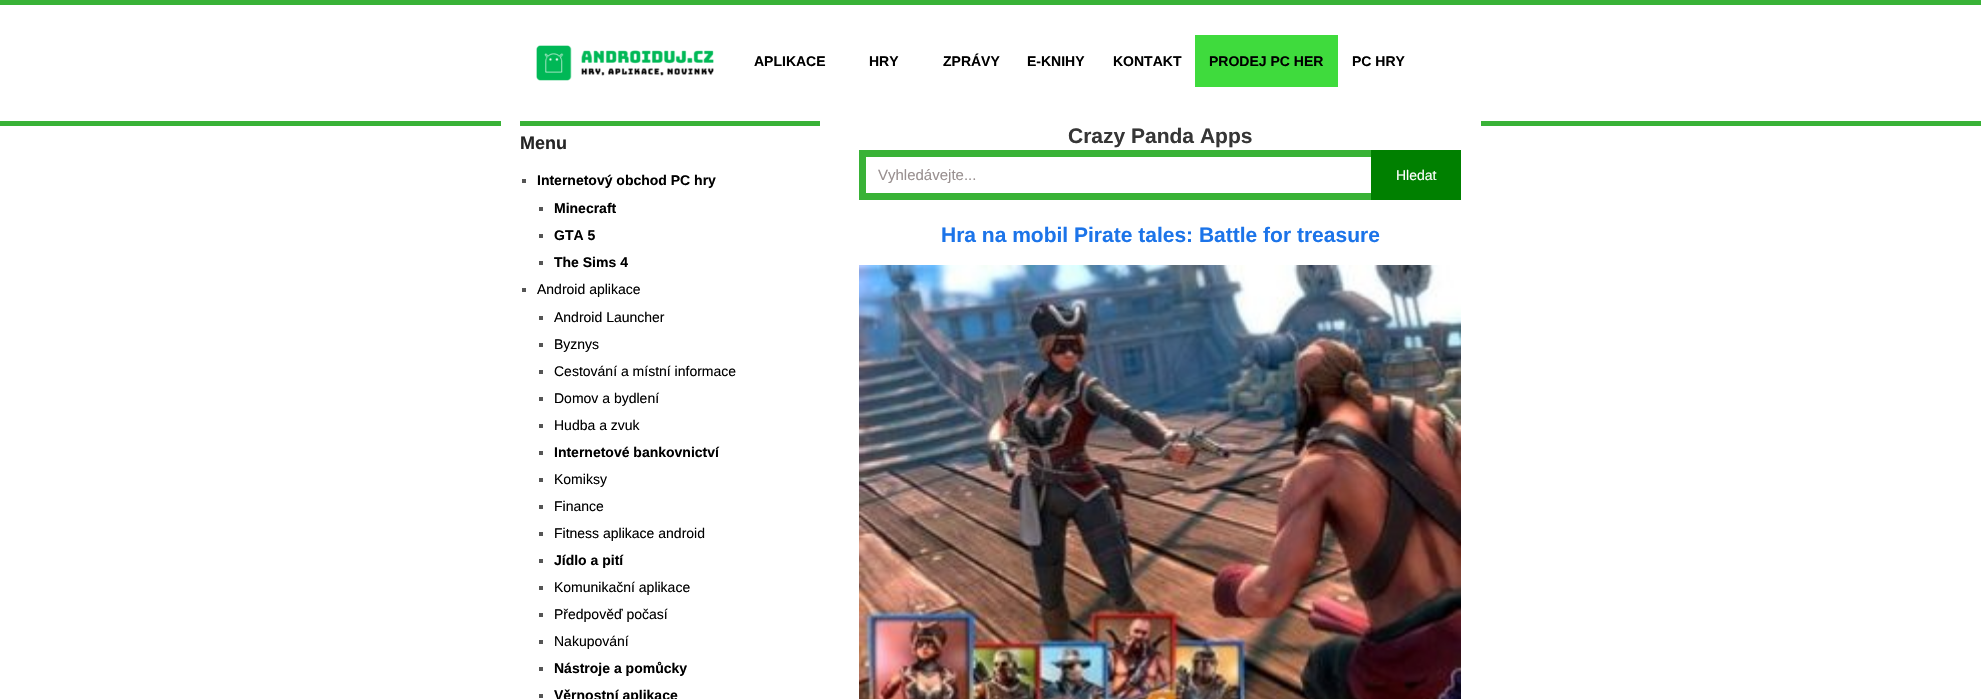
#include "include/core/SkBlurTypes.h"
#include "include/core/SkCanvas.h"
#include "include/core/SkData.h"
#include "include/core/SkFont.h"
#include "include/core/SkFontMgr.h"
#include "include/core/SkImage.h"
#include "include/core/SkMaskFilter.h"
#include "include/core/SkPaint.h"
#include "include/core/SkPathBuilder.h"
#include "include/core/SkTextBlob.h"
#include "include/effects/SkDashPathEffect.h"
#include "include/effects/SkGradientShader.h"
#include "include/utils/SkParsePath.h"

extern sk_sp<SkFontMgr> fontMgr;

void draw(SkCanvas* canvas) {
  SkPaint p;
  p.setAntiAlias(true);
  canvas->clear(SK_ColorWHITE);
  p.setColor(SkColorSetRGB(57, 178, 55));
  canvas->drawRect(SkRect::MakeLTRB(0, 0, 1981, 5), p);
  canvas->drawRect(SkRect::MakeLTRB(0, 121, 1981, 126), p);
  canvas->drawImageRect(SkImages::DeferredFromEncodedData(SkData::MakeFromFileName("images/1.png")), SkRect::MakeLTRB(536, 45, 714, 81), SkSamplingOptions());
  p.setColor(SkColorSetRGB(63, 219, 61));
  canvas->drawRect(SkRect::MakeLTRB(1195, 35, 1338, 87), p);
  p.setColor(SK_ColorWHITE);
  canvas->drawRect(SkRect::MakeLTRB(501, 121, 1481, 126), p);
  p.setColor(SkColorSetRGB(57, 178, 55));
  canvas->drawRect(SkRect::MakeLTRB(520, 121, 820, 126), p);
  p.setColor(SkColorSetRGB(85, 85, 85));
  canvas->drawRect(SkRect::MakeLTRB(522, 179, 526, 183), p);
  canvas->drawRect(SkRect::MakeLTRB(539, 207, 543, 211), p);
  canvas->drawRect(SkRect::MakeLTRB(539, 234, 543, 238), p);
  canvas->drawRect(SkRect::MakeLTRB(539, 261, 543, 265), p);
  canvas->drawRect(SkRect::MakeLTRB(522, 288, 526, 292), p);
  canvas->drawRect(SkRect::MakeLTRB(539, 316, 543, 320), p);
  canvas->drawRect(SkRect::MakeLTRB(539, 343, 543, 347), p);
  canvas->drawRect(SkRect::MakeLTRB(539, 370, 543, 374), p);
  canvas->drawRect(SkRect::MakeLTRB(539, 397, 543, 401), p);
  canvas->drawRect(SkRect::MakeLTRB(539, 424, 543, 428), p);
  canvas->drawRect(SkRect::MakeLTRB(539, 451, 543, 455), p);
  canvas->drawRect(SkRect::MakeLTRB(539, 478, 543, 482), p);
  canvas->drawRect(SkRect::MakeLTRB(539, 505, 543, 509), p);
  canvas->drawRect(SkRect::MakeLTRB(539, 532, 543, 536), p);
  canvas->drawRect(SkRect::MakeLTRB(539, 559, 543, 563), p);
  canvas->drawRect(SkRect::MakeLTRB(539, 586, 543, 590), p);
  canvas->drawRect(SkRect::MakeLTRB(539, 613, 543, 617), p);
  canvas->drawRect(SkRect::MakeLTRB(539, 640, 543, 644), p);
  canvas->drawRect(SkRect::MakeLTRB(539, 667, 543, 671), p);
  canvas->drawRect(SkRect::MakeLTRB(539, 694, 543, 698), p);
  p.setStyle(SkPaint::kStroke_Style);
  p.setStrokeWidth(7);
  p.setColor(SkColorSetRGB(57, 178, 55));
  canvas->drawRect(SkRect::MakeLTRB(862.5f, 153.5f, 1457.5f, 196.5f), p);
  p.setStyle(SkPaint::kFill_Style);
  p.setColor(SkColorSetRGB(0, 128, 0));
  canvas->drawRect(SkRect::MakeLTRB(1371, 150, 1461, 200), p);
  canvas->drawImageRect(SkImages::DeferredFromEncodedData(SkData::MakeFromFileName("images/2.png")), SkRect::MakeLTRB(859, 265, 1461, 699), SkSamplingOptions());
  SkFont font1(fontMgr->matchFamilyStyle("Liberation Sans", SkFontStyle::Bold()), 14);
  font1.setSubpixel(true);
  p.setColor(SK_ColorBLACK);
  canvas->drawString("APLIKACE", 754, 66, font1, p);
  canvas->drawString("HRY", 869, 66, font1, p);
  canvas->drawString("ZPRÁVY", 943, 66, font1, p);
  canvas->drawString("E-KNIHY", 1027, 66, font1, p);
  canvas->drawString("KONTAKT", 1113, 66, font1, p);
  canvas->drawString("PRODEJ PC HER", 1209, 66, font1, p);
  canvas->drawString("PC HRY", 1352, 66, font1, p);
  SkFont font2(fontMgr->matchFamilyStyle("Liberation Sans", SkFontStyle::Bold()), 18);
  font2.setSubpixel(true);
  p.setColor(SkColorSetRGB(38, 38, 38));
  canvas->drawString("Menu", 520, 149, font2, p);
  p.setColor(SK_ColorBLACK);
  canvas->drawString("Internetový obchod PC hry", 537, 185, font1, p);
  canvas->drawString("Minecraft", 554, 213, font1, p);
  canvas->drawString("GTA 5", 554, 240, font1, p);
  canvas->drawString("The Sims 4", 554, 267, font1, p);
  SkFont font3(fontMgr->matchFamilyStyle("Liberation Sans", SkFontStyle::Normal()), 14);
  font3.setSubpixel(true);
  canvas->drawString("Android aplikace", 537, 294, font3, p);
  canvas->drawString("Android Launcher", 554, 322, font3, p);
  canvas->drawString("Byznys", 554, 349, font3, p);
  canvas->drawString("Cestování a místní informace", 554, 376, font3, p);
  canvas->drawString("Domov a bydlení", 554, 403, font3, p);
  canvas->drawString("Hudba a zvuk", 554, 430, font3, p);
  canvas->drawString("Internetové bankovnictví", 554, 457, font1, p);
  canvas->drawString("Komiksy", 554, 484, font3, p);
  canvas->drawString("Finance", 554, 511, font3, p);
  canvas->drawString("Fitness aplikace android", 554, 538, font3, p);
  canvas->drawString("Jídlo a pití", 554, 565, font1, p);
  canvas->drawString("Komunikační aplikace", 554, 592, font3, p);
  canvas->drawString("Předpověď počasí", 554, 619, font3, p);
  canvas->drawString("Nakupování", 554, 646, font3, p);
  canvas->drawString("Nástroje a pomůcky", 554, 673, font1, p);
  canvas->drawString("Věrnostní aplikace", 554, 700, font1, p);
  SkFont font4(fontMgr->matchFamilyStyle("Liberation Sans", SkFontStyle::Bold()), 21);
  font4.setSubpixel(true);
  p.setColor(SkColorSetRGB(54, 54, 54));
  canvas->drawString("Crazy Panda Apps", 1068, 143, font4, p);
  SkFont font5(fontMgr->matchFamilyStyle("Liberation Sans", SkFontStyle::Normal()), 15);
  font5.setSubpixel(true);
  p.setColor(SkColorSetRGB(153, 144, 144));
  canvas->drawString("Vyhledávejte...", 878, 180, font5, p);
  p.setColor(SK_ColorWHITE);
  canvas->drawString("Hledat", 1396, 180, font3, p);
  p.setColor(SkColorSetRGB(28, 116, 233));
  canvas->drawString("Hra na mobil Pirate tales: Battle for treasure", 941, 242, font4, p);
}
